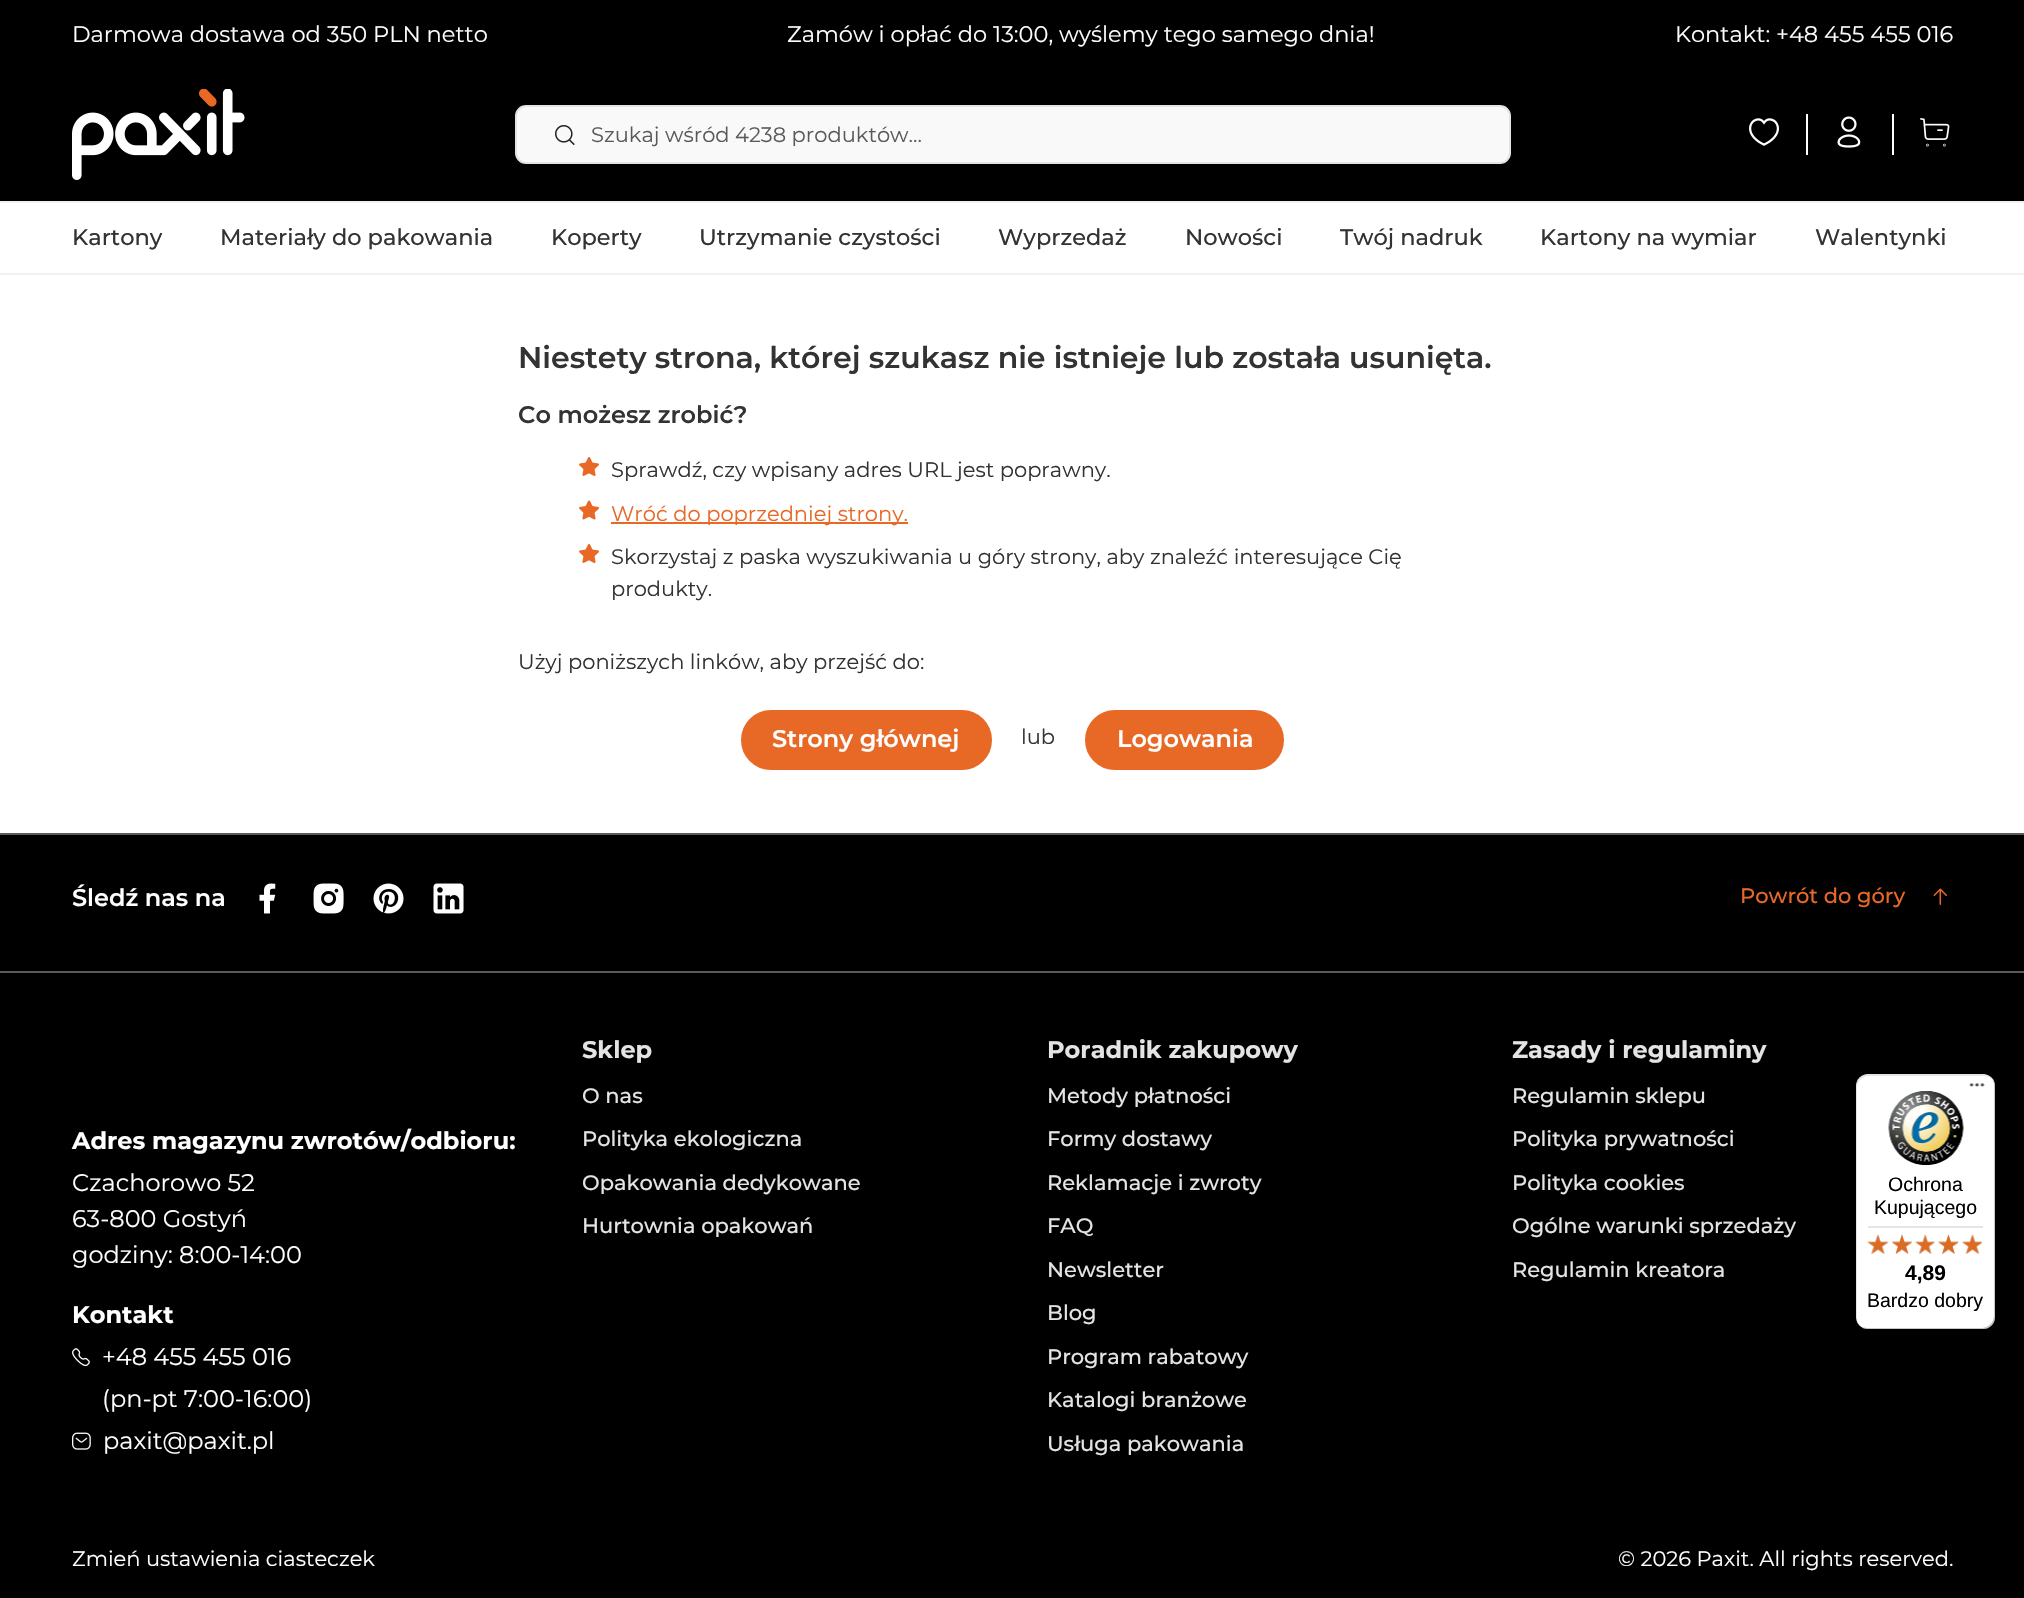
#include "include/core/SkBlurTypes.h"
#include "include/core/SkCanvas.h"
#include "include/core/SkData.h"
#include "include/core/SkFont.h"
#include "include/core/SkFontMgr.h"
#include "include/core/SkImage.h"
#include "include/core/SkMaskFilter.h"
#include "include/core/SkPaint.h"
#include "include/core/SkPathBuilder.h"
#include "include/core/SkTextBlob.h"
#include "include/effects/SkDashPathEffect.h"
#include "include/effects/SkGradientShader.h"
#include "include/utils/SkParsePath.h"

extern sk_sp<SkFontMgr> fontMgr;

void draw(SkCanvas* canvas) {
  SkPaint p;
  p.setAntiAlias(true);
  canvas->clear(SK_ColorWHITE);
  p.setColor(SK_ColorBLACK);
  canvas->drawRect(SkRect::MakeLTRB(0, 0, 2024, 201), p);
  p.setColor(SkColorSetRGB(241, 241, 241));
  canvas->drawRect(SkRect::MakeLTRB(0, 201, 2024, 203), p);
  canvas->drawImageRect(SkImages::DeferredFromEncodedData(SkData::MakeFromFileName("images/1.png")), SkRect::MakeLTRB(72, 89, 245, 180), SkSamplingOptions());
  p.setColor(SkColorSetRGB(249, 249, 249));
  canvas->drawRoundRect(SkRect::MakeLTRB(516, 106, 1510, 163), 10, 10, p);
  p.setStyle(SkPaint::kStroke_Style);
  p.setStrokeWidth(2);
  p.setColor(SkColorSetRGB(228, 228, 228));
  canvas->drawRoundRect(SkRect::MakeLTRB(516, 106, 1510, 163), 10, 10, p);
  canvas->drawImageRect(SkImages::DeferredFromEncodedData(SkData::MakeFromFileName("images/2.png")), SkRect::MakeLTRB(555, 125, 575, 145), SkSamplingOptions());
  canvas->drawImageRect(SkImages::DeferredFromEncodedData(SkData::MakeFromFileName("images/3.png")), SkRect::MakeLTRB(1749, 118, 1779, 146), SkSamplingOptions());
  p.setStyle(SkPaint::kFill_Style);
  p.setColor(SK_ColorWHITE);
  canvas->drawRect(SkRect::MakeLTRB(1806, 114, 1808, 155), p);
  canvas->drawImageRect(SkImages::DeferredFromEncodedData(SkData::MakeFromFileName("images/4.png")), SkRect::MakeLTRB(1837, 116, 1861, 148), SkSamplingOptions());
  canvas->drawRect(SkRect::MakeLTRB(1892, 114, 1894, 155), p);
  canvas->drawImageRect(SkImages::DeferredFromEncodedData(SkData::MakeFromFileName("images/5.png")), SkRect::MakeLTRB(1920, 118, 1950, 147), SkSamplingOptions());
  p.setColor(SkColorSetRGB(241, 241, 241));
  canvas->drawRect(SkRect::MakeLTRB(0, 273, 2024, 275), p);
  canvas->drawImageRect(SkImages::DeferredFromEncodedData(SkData::MakeFromFileName("images/6.png")), SkRect::MakeLTRB(579, 457, 599, 476), SkSamplingOptions());
  canvas->drawImageRect(SkImages::DeferredFromEncodedData(SkData::MakeFromFileName("images/7.png")), SkRect::MakeLTRB(579, 500, 599, 520), SkSamplingOptions());
  p.setColor(SkColorSetRGB(232, 104, 38));
  canvas->drawRect(SkRect::MakeLTRB(611, 522, 908, 524), p);
  canvas->drawImageRect(SkImages::DeferredFromEncodedData(SkData::MakeFromFileName("images/6.png")), SkRect::MakeLTRB(579, 544, 599, 563), SkSamplingOptions());
  canvas->drawRoundRect(SkRect::MakeLTRB(742, 711, 991, 769), 29, 29, p);
  p.setStyle(SkPaint::kStroke_Style);
  canvas->drawRoundRect(SkRect::MakeLTRB(742, 711, 991, 769), 29, 29, p);
  p.setStyle(SkPaint::kFill_Style);
  canvas->drawRoundRect(SkRect::MakeLTRB(1086, 711, 1283, 769), 29, 29, p);
  p.setStyle(SkPaint::kStroke_Style);
  canvas->drawRoundRect(SkRect::MakeLTRB(1086, 711, 1283, 769), 29, 29, p);
  p.setStyle(SkPaint::kFill_Style);
  p.setColor(SK_ColorBLACK);
  canvas->drawRect(SkRect::MakeLTRB(0, 835, 2024, 1598), p);
  p.setColor(SkColorSetRGB(90, 90, 90));
  canvas->drawRect(SkRect::MakeLTRB(0, 833, 2024, 835), p);
  canvas->drawImageRect(SkImages::DeferredFromEncodedData(SkData::MakeFromFileName("images/8.png")), SkRect::MakeLTRB(259, 883, 276, 914), SkSamplingOptions());
  canvas->drawImageRect(SkImages::DeferredFromEncodedData(SkData::MakeFromFileName("images/9.png")), SkRect::MakeLTRB(313, 883, 344, 914), SkSamplingOptions());
  canvas->drawImageRect(SkImages::DeferredFromEncodedData(SkData::MakeFromFileName("images/10.png")), SkRect::MakeLTRB(373, 883, 404, 914), SkSamplingOptions());
  canvas->drawImageRect(SkImages::DeferredFromEncodedData(SkData::MakeFromFileName("images/11.png")), SkRect::MakeLTRB(433, 883, 464, 914), SkSamplingOptions());
  canvas->drawImageRect(SkImages::DeferredFromEncodedData(SkData::MakeFromFileName("images/12.png")), SkRect::MakeLTRB(1933, 888, 1948, 905), SkSamplingOptions());
  canvas->drawRect(SkRect::MakeLTRB(0, 971, 2024, 973), p);
  canvas->drawImageRect(SkImages::DeferredFromEncodedData(SkData::MakeFromFileName("images/13.png")), SkRect::MakeLTRB(72, 1348, 90, 1367), SkSamplingOptions());
  canvas->drawImageRect(SkImages::DeferredFromEncodedData(SkData::MakeFromFileName("images/14.png")), SkRect::MakeLTRB(72, 1432, 91, 1450), SkSamplingOptions());
  p.setColor(SK_ColorWHITE);
  canvas->drawRoundRect(SkRect::MakeLTRB(1856, 1074, 1995, 1329), 12, 12, p);
  p.setColor(SkColorSetARGB(26, 0, 0, 0));
  canvas->drawPath(SkPathBuilder().moveTo(1869, 1076).lineTo(1984, 1076).cubicTo(1988, 1076, 1992, 1078, 1994, 1081).cubicTo(1992, 1077, 1988, 1074, 1983, 1074).lineTo(1868, 1074).cubicTo(1861, 1074, 1856, 1079, 1856, 1086).lineTo(1856, 1317).cubicTo(1856, 1320, 1857, 1323, 1859, 1325).cubicTo(1858, 1323, 1857, 1321, 1857, 1318).lineTo(1857, 1088).cubicTo(1857, 1081, 1862, 1076, 1869, 1076).close().detach(), p);
  p.setColor(SkColorSetARGB(51, 0, 0, 0));
  canvas->drawPath(SkPathBuilder().moveTo(1862, 1327).cubicTo(1863, 1328, 1866, 1329, 1868, 1329).lineTo(1983, 1329).cubicTo(1990, 1329, 1995, 1324, 1995, 1317).lineTo(1995, 1086).cubicTo(1995, 1083, 1994, 1081, 1992, 1079).cubicTo(1993, 1080, 1994, 1082, 1994, 1084).lineTo(1994, 1316).cubicTo(1994, 1322, 1988, 1328, 1982, 1328).lineTo(1866, 1328).close().detach(), p);
  p.setColor(SkColorSetARGB(51, 50, 50, 50));
  canvas->drawPath(SkPathBuilder().moveTo(1860, 1326).cubicTo(1862, 1328, 1865, 1329, 1868, 1329).lineTo(1983, 1329).cubicTo(1990, 1329, 1995, 1324, 1995, 1317).lineTo(1995, 1086).cubicTo(1995, 1083, 1994, 1080, 1992, 1078).cubicTo(1993, 1080, 1994, 1082, 1994, 1085).lineTo(1994, 1316).cubicTo(1994, 1323, 1989, 1328, 1982, 1328).lineTo(1867, 1328).cubicTo(1864, 1328, 1862, 1327, 1860, 1326).close().detach(), p);
  p.setColor(SkColorSetARGB(77, 255, 255, 255));
  canvas->drawPath(SkPathBuilder().moveTo(1860, 1326).cubicTo(1862, 1328, 1865, 1329, 1868, 1329).lineTo(1983, 1329).cubicTo(1990, 1329, 1995, 1324, 1995, 1317).lineTo(1995, 1086).cubicTo(1995, 1082, 1993, 1079, 1991, 1077).cubicTo(1993, 1079, 1994, 1082, 1994, 1085).lineTo(1994, 1316).cubicTo(1994, 1323, 1989, 1328, 1982, 1328).lineTo(1867, 1328).cubicTo(1864, 1328, 1862, 1327, 1860, 1326).close().detach(), p);
  canvas->drawImageRect(SkImages::DeferredFromEncodedData(SkData::MakeFromFileName("images/15.png")), SkRect::MakeLTRB(1969, 1083, 1985, 1087), SkSamplingOptions());
  canvas->drawImageRect(SkImages::DeferredFromEncodedData(SkData::MakeFromFileName("images/16.png")), SkRect::MakeLTRB(1888, 1091, 1964, 1166), SkSamplingOptions());
  p.setColor(SkColorSetRGB(229, 229, 229));
  canvas->drawRect(SkRect::MakeLTRB(1868, 1226, 1983, 1228), p);
  canvas->drawImageRect(SkImages::DeferredFromEncodedData(SkData::MakeFromFileName("images/17.png")), SkRect::MakeLTRB(1867, 1235, 1889, 1254), SkSamplingOptions());
  canvas->drawImageRect(SkImages::DeferredFromEncodedData(SkData::MakeFromFileName("images/18.png")), SkRect::MakeLTRB(1892, 1234, 1912, 1254), SkSamplingOptions());
  canvas->drawImageRect(SkImages::DeferredFromEncodedData(SkData::MakeFromFileName("images/19.png")), SkRect::MakeLTRB(1915, 1235, 1935, 1254), SkSamplingOptions());
  canvas->drawImageRect(SkImages::DeferredFromEncodedData(SkData::MakeFromFileName("images/20.png")), SkRect::MakeLTRB(1938, 1234, 1959, 1254), SkSamplingOptions());
  canvas->drawImageRect(SkImages::DeferredFromEncodedData(SkData::MakeFromFileName("images/21.png")), SkRect::MakeLTRB(1962, 1235, 1983, 1254), SkSamplingOptions());
  canvas->drawImageRect(SkImages::DeferredFromEncodedData(SkData::MakeFromFileName("images/22.png")), SkRect::MakeLTRB(1867, 1234, 1889, 1254), SkSamplingOptions());
  canvas->drawImageRect(SkImages::DeferredFromEncodedData(SkData::MakeFromFileName("images/23.png")), SkRect::MakeLTRB(1892, 1234, 1912, 1254), SkSamplingOptions());
  canvas->drawImageRect(SkImages::DeferredFromEncodedData(SkData::MakeFromFileName("images/24.png")), SkRect::MakeLTRB(1915, 1234, 1935, 1254), SkSamplingOptions());
  canvas->drawImageRect(SkImages::DeferredFromEncodedData(SkData::MakeFromFileName("images/25.png")), SkRect::MakeLTRB(1938, 1234, 1959, 1254), SkSamplingOptions());
  canvas->drawImageRect(SkImages::DeferredFromEncodedData(SkData::MakeFromFileName("images/26.png")), SkRect::MakeLTRB(1962, 1234, 1982, 1254), SkSamplingOptions());
  SkFont font1(fontMgr->matchFamilyStyle("Montserrat", SkFontStyle::Normal()), 22.5f);
  font1.setSubpixel(true);
  p.setColor(SK_ColorWHITE);
  canvas->drawString("Darmowa dostawa od 350 PLN netto", 72, 42, font1, p);
  canvas->drawString("Zamów i opłać do 13:00, wyślemy tego samego dnia!", 787, 42, font1, p);
  canvas->drawString("Kontakt: +48 455 455 016", 1675, 42, font1, p);
  SkFont font2(fontMgr->matchFamilyStyle("Montserrat", SkFontStyle::Normal()), 21);
  font2.setSubpixel(true);
  p.setColor(SkColorSetRGB(90, 90, 90));
  canvas->drawString("Szukaj wśród 4238 produktów...", 591, 142, font2, p);
  SkFont font3(fontMgr->matchFamilyStyle("Montserrat", SkFontStyle(500, SkFontStyle::kNormal_Width, SkFontStyle::kUpright_Slant)), 22.5f);
  font3.setSubpixel(true);
  p.setColor(SkColorSetRGB(51, 51, 51));
  canvas->drawString("Kartony", 72, 245, font3, p);
  canvas->drawString("Materiały do pakowania", 220, 245, font3, p);
  canvas->drawString("Koperty", 551, 245, font3, p);
  canvas->drawString("Utrzymanie czystości", 699, 245, font3, p);
  canvas->drawString("Wyprzedaż", 998, 245, font3, p);
  canvas->drawString("Nowości", 1185, 245, font3, p);
  canvas->drawString("Twój nadruk", 1340, 245, font3, p);
  canvas->drawString("Kartony na wymiar", 1540, 245, font3, p);
  canvas->drawString("Walentynki", 1815, 245, font3, p);
  SkFont font4(fontMgr->matchFamilyStyle("Montserrat", SkFontStyle(600, SkFontStyle::kNormal_Width, SkFontStyle::kUpright_Slant)), 30);
  font4.setSubpixel(true);
  canvas->drawString("Niestety strona, której szukasz nie istnieje lub została usunięta.", 518, 368, font4, p);
  SkFont font5(fontMgr->matchFamilyStyle("Montserrat", SkFontStyle(600, SkFontStyle::kNormal_Width, SkFontStyle::kUpright_Slant)), 24);
  font5.setSubpixel(true);
  canvas->drawString("Co możesz zrobić?", 518, 423, font5, p);
  canvas->drawString("Sprawdź, czy wpisany adres URL jest poprawny.", 611, 477, font2, p);
  p.setColor(SkColorSetRGB(232, 104, 38));
  canvas->drawString("Wróć do poprzedniej strony.", 611, 521, font2, p);
  p.setColor(SkColorSetRGB(51, 51, 51));
  canvas->drawString("Skorzystaj z paska wyszukiwania u góry strony, aby znaleźć interesujące Cię", 611, 564, font2, p);
  canvas->drawString("produkty.", 611, 596, font2, p);
  canvas->drawString("Użyj poniższych linków, aby przejść do:", 518, 669, font2, p);
  p.setColor(SK_ColorWHITE);
  canvas->drawString("Strony głównej", 772, 747, font5, p);
  p.setColor(SkColorSetRGB(51, 51, 51));
  canvas->drawString("lub", 1021, 744, font2, p);
  p.setColor(SK_ColorWHITE);
  canvas->drawString("Logowania", 1117, 747, font5, p);
  canvas->drawString("Śledź nas na", 72, 906, font5, p);
  SkFont font6(fontMgr->matchFamilyStyle("Montserrat", SkFontStyle(500, SkFontStyle::kNormal_Width, SkFontStyle::kUpright_Slant)), 21);
  font6.setSubpixel(true);
  p.setColor(SkColorSetRGB(232, 104, 38));
  canvas->drawString("Powrót do góry", 1740, 903, font6, p);
  SkFont font7(fontMgr->matchFamilyStyle("Montserrat", SkFontStyle::Bold()), 24);
  font7.setSubpixel(true);
  p.setColor(SK_ColorWHITE);
  canvas->drawString("Adres magazynu zwrotów/odbioru:", 72, 1149, font7, p);
  SkFont font8(fontMgr->matchFamilyStyle("Montserrat", SkFontStyle::Normal()), 24);
  font8.setSubpixel(true);
  canvas->drawString("Czachorowo 52", 72, 1191, font8, p);
  canvas->drawString("63-800 Gostyń", 72, 1227, font8, p);
  canvas->drawString("godziny: 8:00-14:00", 72, 1263, font8, p);
  canvas->drawString("Kontakt", 72, 1323, font7, p);
  canvas->drawString("+48 455 455 016", 102, 1365, font8, p);
  canvas->drawString("(pn-pt 7:00-16:00)", 102, 1407, font8, p);
  canvas->drawString("paxit@paxit.pl", 103, 1449, font8, p);
  p.setColor(SkColorSetRGB(228, 228, 228));
  canvas->drawString("Sklep", 582, 1058, font7, p);
  canvas->drawString("O nas", 582, 1103, font6, p);
  canvas->drawString("Polityka ekologiczna", 582, 1146, font6, p);
  canvas->drawString("Opakowania dedykowane", 582, 1190, font6, p);
  canvas->drawString("Hurtownia opakowań", 582, 1233, font6, p);
  canvas->drawString("Poradnik zakupowy", 1047, 1058, font7, p);
  canvas->drawString("Metody płatności", 1047, 1103, font6, p);
  canvas->drawString("Formy dostawy", 1047, 1146, font6, p);
  canvas->drawString("Reklamacje i zwroty", 1047, 1190, font6, p);
  canvas->drawString("FAQ", 1047, 1233, font6, p);
  canvas->drawString("Newsletter", 1047, 1277, font6, p);
  canvas->drawString("Blog", 1047, 1320, font6, p);
  canvas->drawString("Program rabatowy", 1047, 1364, font6, p);
  canvas->drawString("Katalogi branżowe", 1047, 1407, font6, p);
  canvas->drawString("Usługa pakowania", 1047, 1451, font6, p);
  canvas->drawString("Zasady i regulaminy", 1512, 1058, font7, p);
  canvas->drawString("Regulamin sklepu", 1512, 1103, font6, p);
  canvas->drawString("Polityka prywatności", 1512, 1146, font6, p);
  canvas->drawString("Polityka cookies", 1512, 1190, font6, p);
  canvas->drawString("Ogólne warunki sprzedaży", 1512, 1233, font6, p);
  canvas->drawString("Regulamin kreatora", 1512, 1277, font6, p);
  p.setColor(SK_ColorWHITE);
  canvas->drawString("Zmień ustawienia ciasteczek", 72, 1566, font2, p);
  canvas->drawString("© 2026 Paxit. All rights reserved.", 1618, 1566, font2, p);
  SkFont font9(fontMgr->matchFamilyStyle("Liberation Sans", SkFontStyle::Normal()), 19.5f);
  font9.setSubpixel(true);
  p.setColor(SK_ColorBLACK);
  canvas->drawString("Ochrona", 1888, 1191, font9, p);
  canvas->drawString("Kupującego", 1874, 1214, font9, p);
  SkFont font10(fontMgr->matchFamilyStyle("Liberation Sans", SkFontStyle::Bold()), 21);
  font10.setSubpixel(true);
  canvas->drawString("4,89", 1905, 1280, font10, p);
  canvas->drawString("Bardzo dobry", 1867, 1307, font9, p);
}
